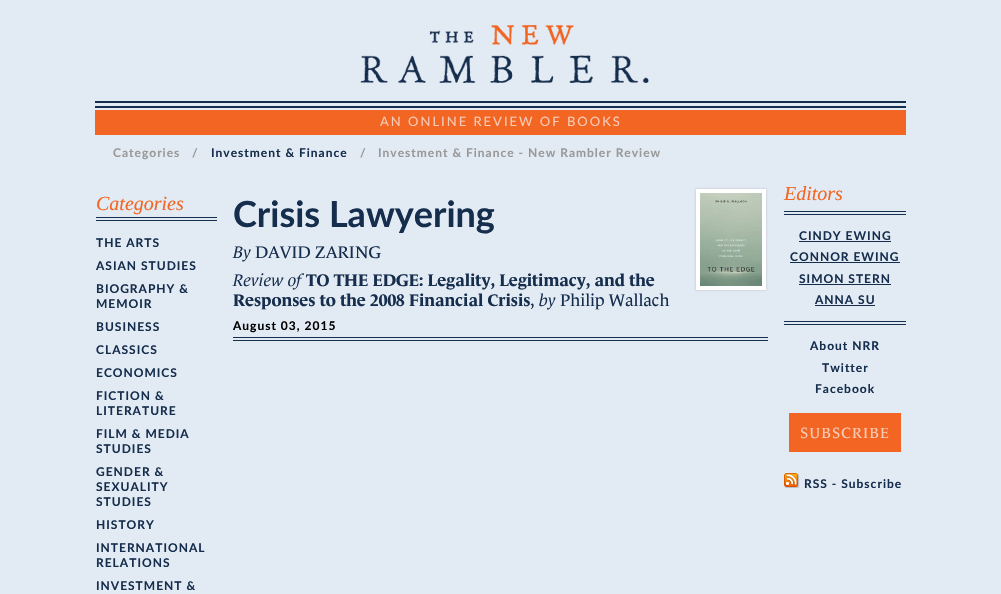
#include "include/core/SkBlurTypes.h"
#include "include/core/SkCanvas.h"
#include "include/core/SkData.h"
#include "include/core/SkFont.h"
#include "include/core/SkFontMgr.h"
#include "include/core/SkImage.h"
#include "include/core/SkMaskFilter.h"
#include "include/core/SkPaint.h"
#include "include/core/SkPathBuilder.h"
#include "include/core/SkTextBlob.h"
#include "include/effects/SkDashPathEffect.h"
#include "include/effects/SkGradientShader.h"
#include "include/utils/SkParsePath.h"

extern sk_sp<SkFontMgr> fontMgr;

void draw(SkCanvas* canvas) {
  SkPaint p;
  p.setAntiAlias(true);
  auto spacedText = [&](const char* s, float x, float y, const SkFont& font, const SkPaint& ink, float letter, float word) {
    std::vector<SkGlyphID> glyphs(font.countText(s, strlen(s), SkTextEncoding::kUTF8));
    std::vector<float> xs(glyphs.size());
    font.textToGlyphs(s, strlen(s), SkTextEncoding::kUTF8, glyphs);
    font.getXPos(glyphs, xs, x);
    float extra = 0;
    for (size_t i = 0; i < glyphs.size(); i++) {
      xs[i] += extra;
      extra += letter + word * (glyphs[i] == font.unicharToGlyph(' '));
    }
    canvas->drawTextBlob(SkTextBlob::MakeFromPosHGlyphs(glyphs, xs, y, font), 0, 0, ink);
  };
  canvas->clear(SkColorSetRGB(226, 234, 243));
  p.setColor(SkColorSetRGB(22, 46, 77));
  canvas->drawRect(SkRect::MakeLTRB(95, 101, 906, 103), p);
  canvas->drawRect(SkRect::MakeLTRB(95, 106, 906, 108), p);
  canvas->drawImageRect(SkImages::DeferredFromEncodedData(SkData::MakeFromFileName("images/1.png")), SkRect::MakeLTRB(360, 25, 649, 83), SkSamplingOptions());
  p.setColor(SkColorSetRGB(242, 101, 34));
  canvas->drawRect(SkRect::MakeLTRB(95, 110, 906, 135), p);
  p.setColor(SkColorSetRGB(22, 46, 77));
  canvas->drawRect(SkRect::MakeLTRB(96, 217, 217, 218), p);
  canvas->drawRect(SkRect::MakeLTRB(96, 220, 217, 221), p);
  canvas->drawRect(SkRect::MakeLTRB(233, 337, 768, 338), p);
  canvas->drawRect(SkRect::MakeLTRB(233, 340, 768, 341), p);
  p.setColor(SkColorSetARGB(51, 0, 0, 0));
  p.setMaskFilter(SkMaskFilter::MakeBlur(kNormal_SkBlurStyle, 1));
  canvas->drawRect(SkRect::MakeLTRB(696, 189, 766, 290), p);
  p.setMaskFilter(nullptr);
  p.setColor(SK_ColorWHITE);
  canvas->drawRect(SkRect::MakeLTRB(696, 189, 766, 290), p);
  canvas->drawImageRect(SkImages::DeferredFromEncodedData(SkData::MakeFromFileName("images/2.png")), SkRect::MakeLTRB(700, 193, 762, 286), SkSamplingOptions());
  p.setColor(SkColorSetRGB(22, 46, 77));
  canvas->drawRect(SkRect::MakeLTRB(784, 211, 906, 212), p);
  canvas->drawRect(SkRect::MakeLTRB(784, 214, 906, 215), p);
  canvas->drawRect(SkRect::MakeLTRB(799, 241, 891, 242), p);
  canvas->drawRect(SkRect::MakeLTRB(790, 262, 900, 263), p);
  canvas->drawRect(SkRect::MakeLTRB(799, 284, 891, 285), p);
  canvas->drawRect(SkRect::MakeLTRB(815, 305, 875, 306), p);
  canvas->drawRect(SkRect::MakeLTRB(784, 321, 906, 322), p);
  canvas->drawRect(SkRect::MakeLTRB(784, 324, 906, 325), p);
  p.setColor(SkColorSetRGB(242, 101, 34));
  canvas->drawRect(SkRect::MakeLTRB(789, 413, 901, 452), p);
  canvas->drawImageRect(SkImages::DeferredFromEncodedData(SkData::MakeFromFileName("images/3.png")), SkRect::MakeLTRB(784, 473, 800, 488), SkSamplingOptions());
  SkFont font1(fontMgr->matchFamilyStyle("Lato", SkFontStyle::Normal()), 13);
  font1.setSubpixel(true);
  p.setColor(SkColorSetRGB(247, 202, 181));
  spacedText("AN ONLINE REVIEW OF BOOKS", 380, 126, font1, p, 2, 0);
  SkFont font2(fontMgr->matchFamilyStyle("Lato", SkFontStyle::Bold()), 12);
  font2.setSubpixel(true);
  p.setColor(SkColorSetRGB(153, 153, 153));
  spacedText("Categories", 113, 157, font2, p, 1, 0);
  spacedText("/", 192, 157, font2, p, 1, 0);
  p.setColor(SkColorSetRGB(22, 46, 77));
  spacedText("Investment & Finance", 211, 157, font2, p, 1, 0);
  p.setColor(SkColorSetRGB(153, 153, 153));
  spacedText("/", 360, 157, font2, p, 1, 0);
  spacedText("Investment & Finance - New Rambler Review", 378, 157, font2, p, 1, 0);
  SkFont font3(fontMgr->matchFamilyStyle("Liberation Serif", SkFontStyle::Italic()), 20);
  font3.setSubpixel(true);
  p.setColor(SkColorSetRGB(242, 101, 34));
  canvas->drawString("Categories", 96, 210, font3, p);
  p.setColor(SkColorSetRGB(22, 46, 77));
  spacedText("THE ARTS", 96, 247, font2, p, 1, 0);
  spacedText("ASIAN STUDIES", 96, 270, font2, p, 1, 0);
  spacedText("BIOGRAPHY &", 96, 293, font2, p, 1, 0);
  spacedText("MEMOIR", 96, 308, font2, p, 1, 0);
  spacedText("BUSINESS", 96, 331, font2, p, 1, 0);
  spacedText("CLASSICS", 96, 354, font2, p, 1, 0);
  spacedText("ECONOMICS", 96, 377, font2, p, 1, 0);
  spacedText("FICTION &", 96, 400, font2, p, 1, 0);
  spacedText("LITERATURE", 96, 415, font2, p, 1, 0);
  spacedText("FILM & MEDIA", 96, 438, font2, p, 1, 0);
  spacedText("STUDIES", 96, 453, font2, p, 1, 0);
  spacedText("GENDER &", 96, 476, font2, p, 1, 0);
  spacedText("SEXUALITY", 96, 491, font2, p, 1, 0);
  spacedText("STUDIES", 96, 506, font2, p, 1, 0);
  spacedText("HISTORY", 96, 529, font2, p, 1, 0);
  spacedText("INTERNATIONAL", 96, 552, font2, p, 1, 0);
  spacedText("RELATIONS", 96, 567, font2, p, 1, 0);
  spacedText("INVESTMENT &", 96, 590, font2, p, 1, 0);
  SkFont font4(fontMgr->matchFamilyStyle("Lato", SkFontStyle::Bold()), 36);
  font4.setSubpixel(true);
  canvas->drawString("Crisis Lawyering", 233, 227, font4, p);
  SkFont font5(fontMgr->matchFamilyStyle("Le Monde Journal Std", SkFontStyle::Italic()), 17);
  font5.setSubpixel(true);
  canvas->drawString("By", 233, 258, font5, p);
  SkFont font6(fontMgr->matchFamilyStyle("Le Monde Journal Std", SkFontStyle::Normal()), 17);
  font6.setSubpixel(true);
  canvas->drawString("DAVID ZARING", 255, 258, font6, p);
  canvas->drawString("Review of", 233, 286, font5, p);
  SkFont font7(fontMgr->matchFamilyStyle("Le Monde Journal Std", SkFontStyle::Bold()), 17);
  font7.setSubpixel(true);
  canvas->drawString("TO THE EDGE: Legality, Legitimacy, and the", 306, 286, font7, p);
  canvas->drawString("Responses to the 2008 Financial Crisis", 233, 306, font7, p);
  canvas->drawString(",", 530, 306, font6, p);
  canvas->drawString("by", 539, 306, font5, p);
  canvas->drawString("Philip Wallach", 560, 306, font6, p);
  p.setColor(SK_ColorBLACK);
  spacedText("August 03, 2015", 233, 330, font2, p, 1, 0);
  p.setColor(SkColorSetRGB(242, 101, 34));
  canvas->drawString("Editors", 784, 200, font3, p);
  p.setColor(SkColorSetRGB(22, 46, 77));
  spacedText("CINDY EWING", 799, 240, font2, p, 1, 0);
  spacedText("CONNOR EWING", 790, 261, font2, p, 1, 0);
  spacedText("SIMON STERN", 799, 283, font2, p, 1, 0);
  spacedText("ANNA SU", 815, 304, font2, p, 1, 0);
  spacedText("About NRR", 810, 350, font2, p, 1, 0);
  spacedText("Twitter", 822, 372, font2, p, 1, 0);
  spacedText("Facebook", 815, 393, font2, p, 1, 0);
  SkFont font8(fontMgr->matchFamilyStyle("Le Monde Journal Std", SkFontStyle::Normal()), 15);
  font8.setSubpixel(true);
  p.setColor(SkColorSetRGB(247, 202, 181));
  spacedText("SUBSCRIBE", 800, 438, font8, p, 1, 0);
  p.setColor(SkColorSetRGB(22, 46, 77));
  spacedText("RSS - Subscribe", 804, 488, font2, p, 1, 0);
}
